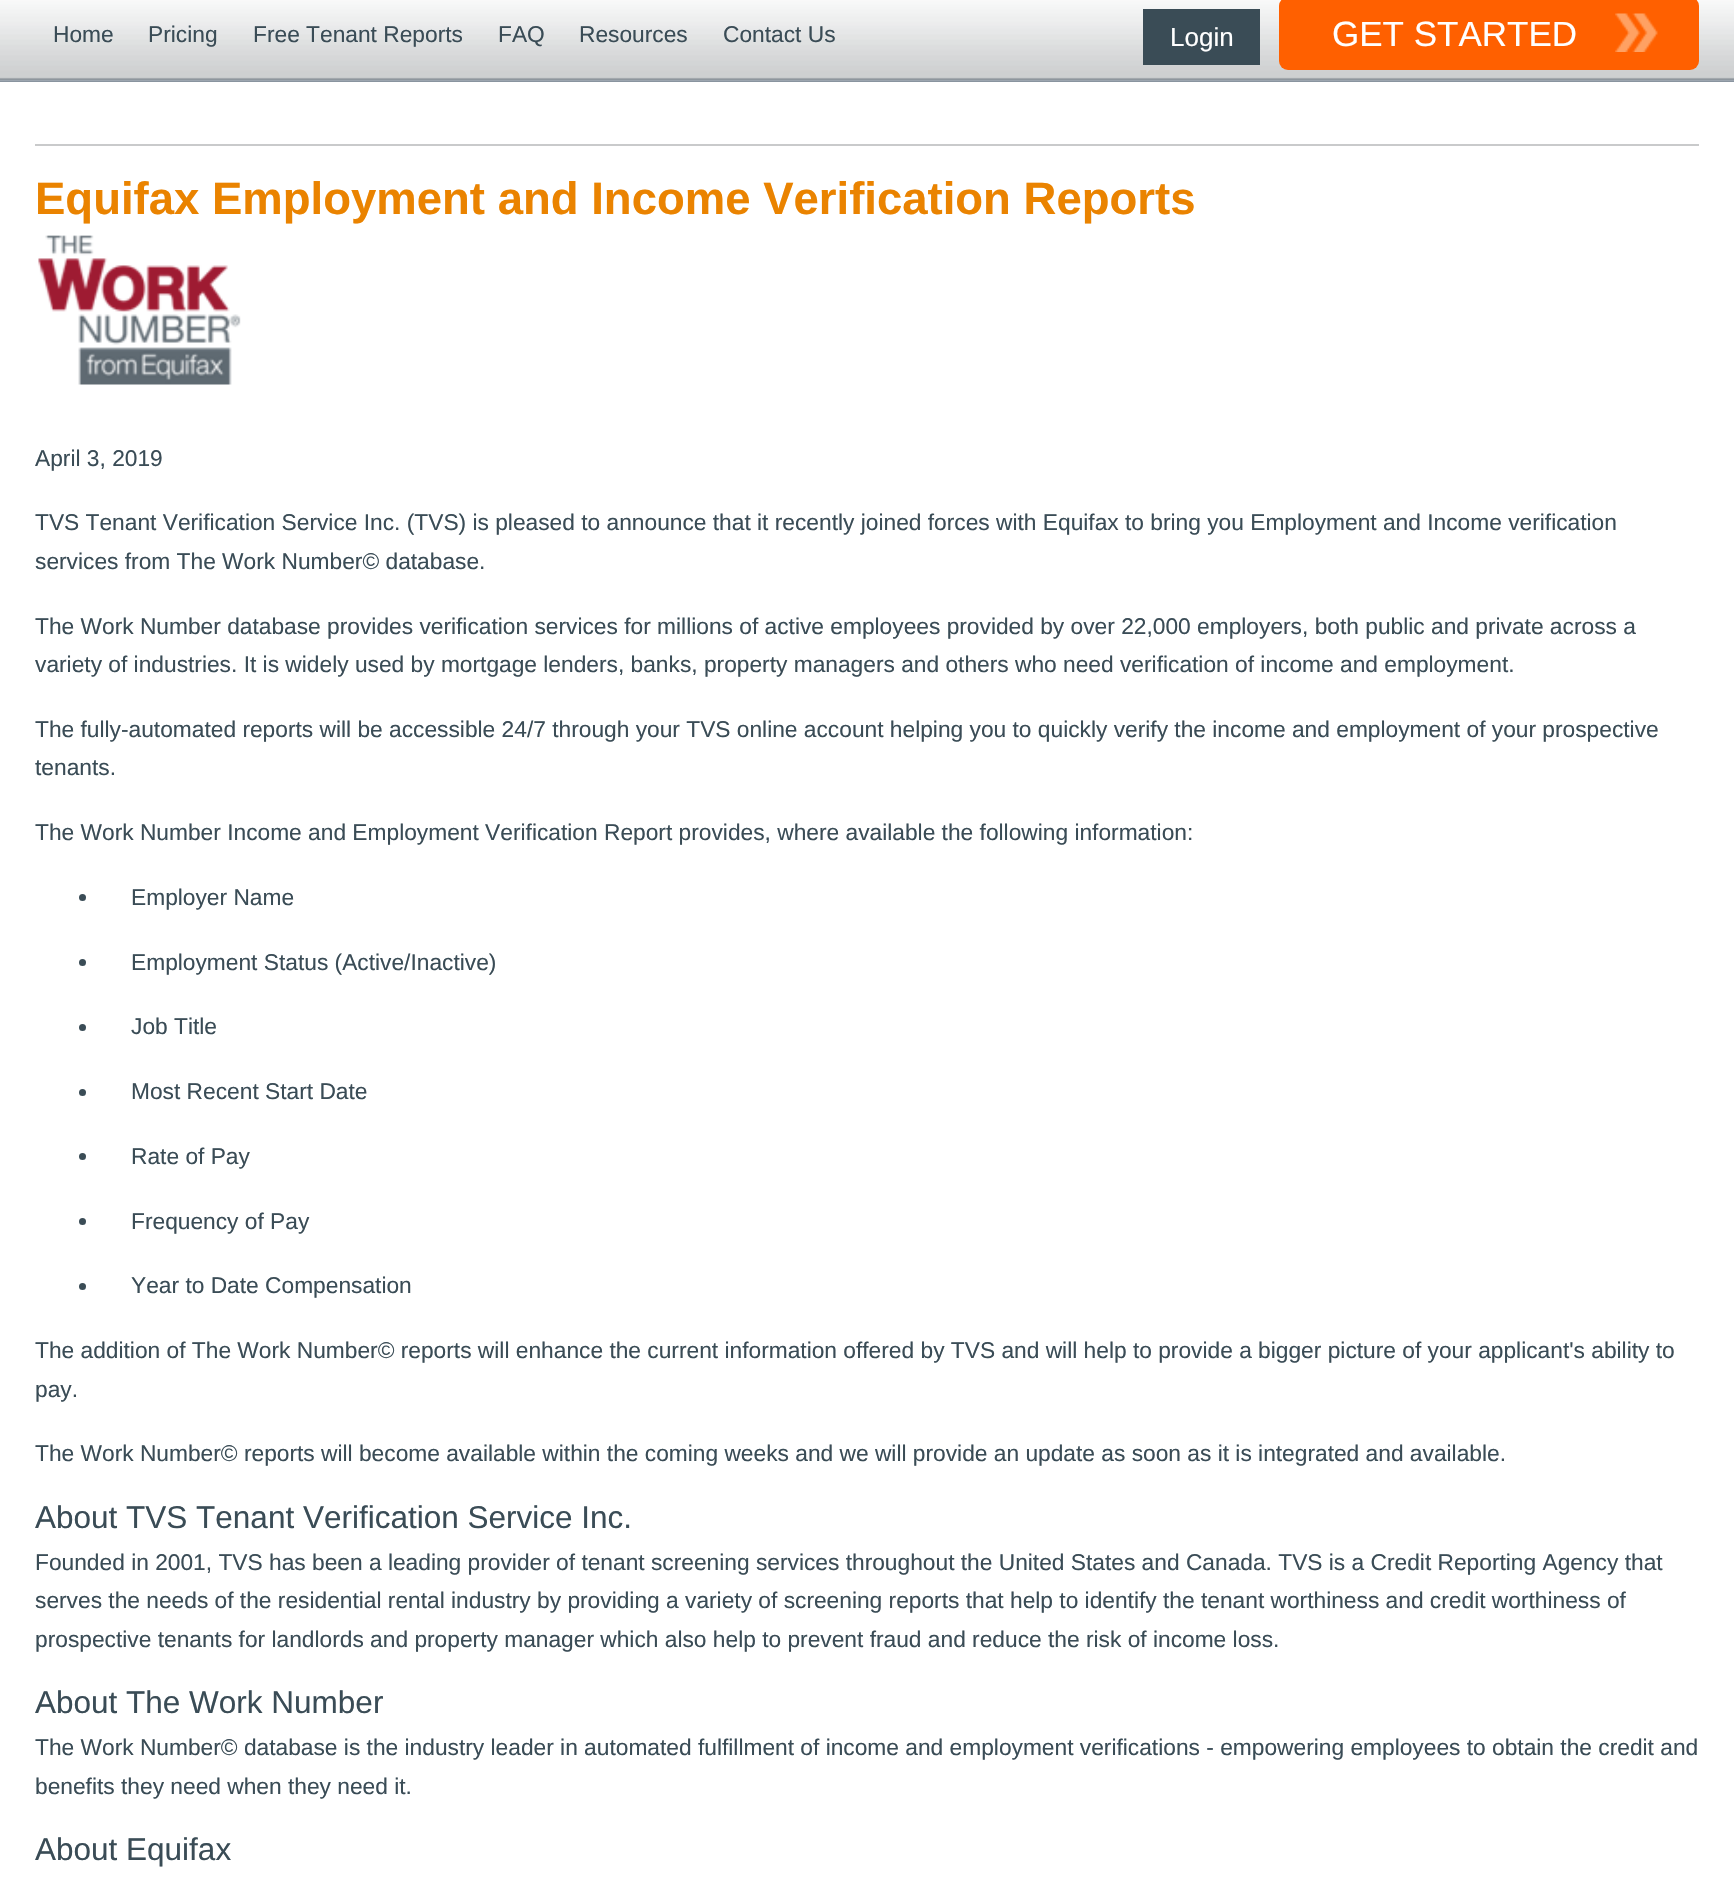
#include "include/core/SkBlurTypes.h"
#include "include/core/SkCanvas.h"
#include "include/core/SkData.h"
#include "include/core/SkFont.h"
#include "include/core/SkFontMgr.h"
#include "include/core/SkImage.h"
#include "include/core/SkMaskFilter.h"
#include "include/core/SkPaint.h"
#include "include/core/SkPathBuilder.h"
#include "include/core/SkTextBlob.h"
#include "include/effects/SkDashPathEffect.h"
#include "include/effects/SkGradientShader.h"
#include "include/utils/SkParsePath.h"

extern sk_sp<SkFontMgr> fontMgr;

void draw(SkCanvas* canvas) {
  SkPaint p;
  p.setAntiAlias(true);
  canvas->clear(SK_ColorWHITE);
  canvas->drawImageRect(SkImages::DeferredFromEncodedData(SkData::MakeFromFileName("images/1.png")), SkRect::MakeLTRB(0, 81, 1734, 82), SkSamplingOptions());
  canvas->drawImageRect(SkImages::DeferredFromEncodedData(SkData::MakeFromFileName("images/2.png")), SkRect::MakeLTRB(0, 0, 1734, 82), SkSamplingOptions());
  p.setColor(SkColorSetRGB(58, 76, 86));
  canvas->drawRect(SkRect::MakeLTRB(1143, 9, 1260, 65), p);
  p.setColor(SkColorSetRGB(255, 96, 0));
  canvas->drawRoundRect(SkRect::MakeLTRB(1279, -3, 1699, 70), 9, 9, p);
  canvas->drawImageRect(SkImages::DeferredFromEncodedData(SkData::MakeFromFileName("images/3.png")), SkRect::MakeLTRB(1615, 13, 1658, 52), SkSamplingOptions());
  p.setColor(SkColorSetRGB(201, 202, 203));
  canvas->drawRect(SkRect::MakeLTRB(35, 144, 1699, 146), p);
  canvas->drawImageRect(SkImages::DeferredFromEncodedData(SkData::MakeFromFileName("images/4.png")), SkRect::MakeLTRB(38, 235, 241, 385), SkSamplingOptions());
  p.setColor(SkColorSetRGB(58, 76, 86));
  canvas->drawCircle(82.5f, 897.5f, 3.5f, p);
  canvas->drawCircle(82.5f, 962.5f, 3.5f, p);
  canvas->drawCircle(82.5f, 1027.5f, 3.5f, p);
  canvas->drawCircle(82.5f, 1092.5f, 3.5f, p);
  canvas->drawCircle(82.5f, 1156.5f, 3.5f, p);
  canvas->drawCircle(82.5f, 1221.5f, 3.5f, p);
  canvas->drawCircle(82.5f, 1286.5f, 3.5f, p);
  SkFont font1(fontMgr->matchFamilyStyle("Liberation Sans", SkFontStyle::Normal()), 22.75f);
  font1.setSubpixel(true);
  canvas->drawString("Home", 53, 42, font1, p);
  canvas->drawString("Pricing", 148, 42, font1, p);
  canvas->drawString("Free Tenant Reports", 253, 42, font1, p);
  canvas->drawString("FAQ", 498, 42, font1, p);
  canvas->drawString("Resources", 579, 42, font1, p);
  canvas->drawString("Contact Us", 723, 42, font1, p);
  SkFont font2(fontMgr->matchFamilyStyle("Liberation Sans", SkFontStyle::Normal()), 26);
  font2.setSubpixel(true);
  p.setColor(SK_ColorWHITE);
  canvas->drawString("Login", 1170, 46, font2, p);
  SkFont font3(fontMgr->matchFamilyStyle("Liberation Sans", SkFontStyle::Normal()), 35);
  font3.setSubpixel(true);
  canvas->drawString("GET STARTED", 1332, 46, font3, p);
  SkFont font4(fontMgr->matchFamilyStyle("Liberation Sans", SkFontStyle::Bold()), 45.5f);
  font4.setSubpixel(true);
  p.setColor(SkColorSetRGB(234, 131, 0));
  canvas->drawString("Equifax Employment and Income Verification Reports", 35, 214, font4, p);
  p.setColor(SkColorSetRGB(58, 76, 86));
  canvas->drawString("April 3, 2019", 35, 466, font1, p);
  canvas->drawString("TVS Tenant Verification Service Inc. (TVS) is pleased to announce that it recently joined forces with Equifax to bring you Employment and Income verification", 35, 530, font1, p);
  canvas->drawString("services from The Work Number© database.", 35, 569, font1, p);
  canvas->drawString("The Work Number database provides verification services for millions of active employees provided by over 22,000 employers, both public and private across a", 35, 634, font1, p);
  canvas->drawString("variety of industries. It is widely used by mortgage lenders, banks, property managers and others who need verification of income and employment.", 35, 672, font1, p);
  canvas->drawString("The fully-automated reports will be accessible 24/7 through your TVS online account helping you to quickly verify the income and employment of your prospective", 35, 737, font1, p);
  canvas->drawString("tenants.", 35, 775, font1, p);
  canvas->drawString("The Work Number Income and Employment Verification Report provides, where available the following information:", 35, 840, font1, p);
  canvas->drawString("Employer Name", 131, 905, font1, p);
  canvas->drawString("Employment Status (Active/Inactive)", 131, 970, font1, p);
  canvas->drawString("Job Title", 131, 1034, font1, p);
  canvas->drawString("Most Recent Start Date", 131, 1099, font1, p);
  canvas->drawString("Rate of Pay", 131, 1164, font1, p);
  canvas->drawString("Frequency of Pay", 131, 1229, font1, p);
  canvas->drawString("Year to Date Compensation", 131, 1293, font1, p);
  canvas->drawString("The addition of The Work Number© reports will enhance the current information offered by TVS and will help to provide a bigger picture of your applicant's ability to", 35, 1358, font1, p);
  canvas->drawString("pay.", 35, 1397, font1, p);
  canvas->drawString("The Work Number© reports will become available within the coming weeks and we will provide an update as soon as it is integrated and available.", 35, 1461, font1, p);
  SkFont font5(fontMgr->matchFamilyStyle("Liberation Sans", SkFontStyle::Normal()), 31.5f);
  font5.setSubpixel(true);
  canvas->drawString("About TVS Tenant Verification Service Inc.", 35, 1528, font5, p);
  canvas->drawString("Founded in 2001, TVS has been a leading provider of tenant screening services throughout the United States and Canada. TVS is a Credit Reporting Agency that", 35, 1570, font1, p);
  canvas->drawString("serves the needs of the residential rental industry by providing a variety of screening reports that help to identify the tenant worthiness and credit worthiness of", 35, 1608, font1, p);
  canvas->drawString("prospective tenants for landlords and property manager which also help to prevent fraud and reduce the risk of income loss.", 35, 1647, font1, p);
  canvas->drawString("About The Work Number", 35, 1713, font5, p);
  canvas->drawString("The Work Number© database is the industry leader in automated fulfillment of income and employment verifications - empowering employees to obtain the credit and", 35, 1755, font1, p);
  canvas->drawString("benefits they need when they need it.", 35, 1794, font1, p);
  canvas->drawString("About Equifax", 35, 1860, font5, p);
}
